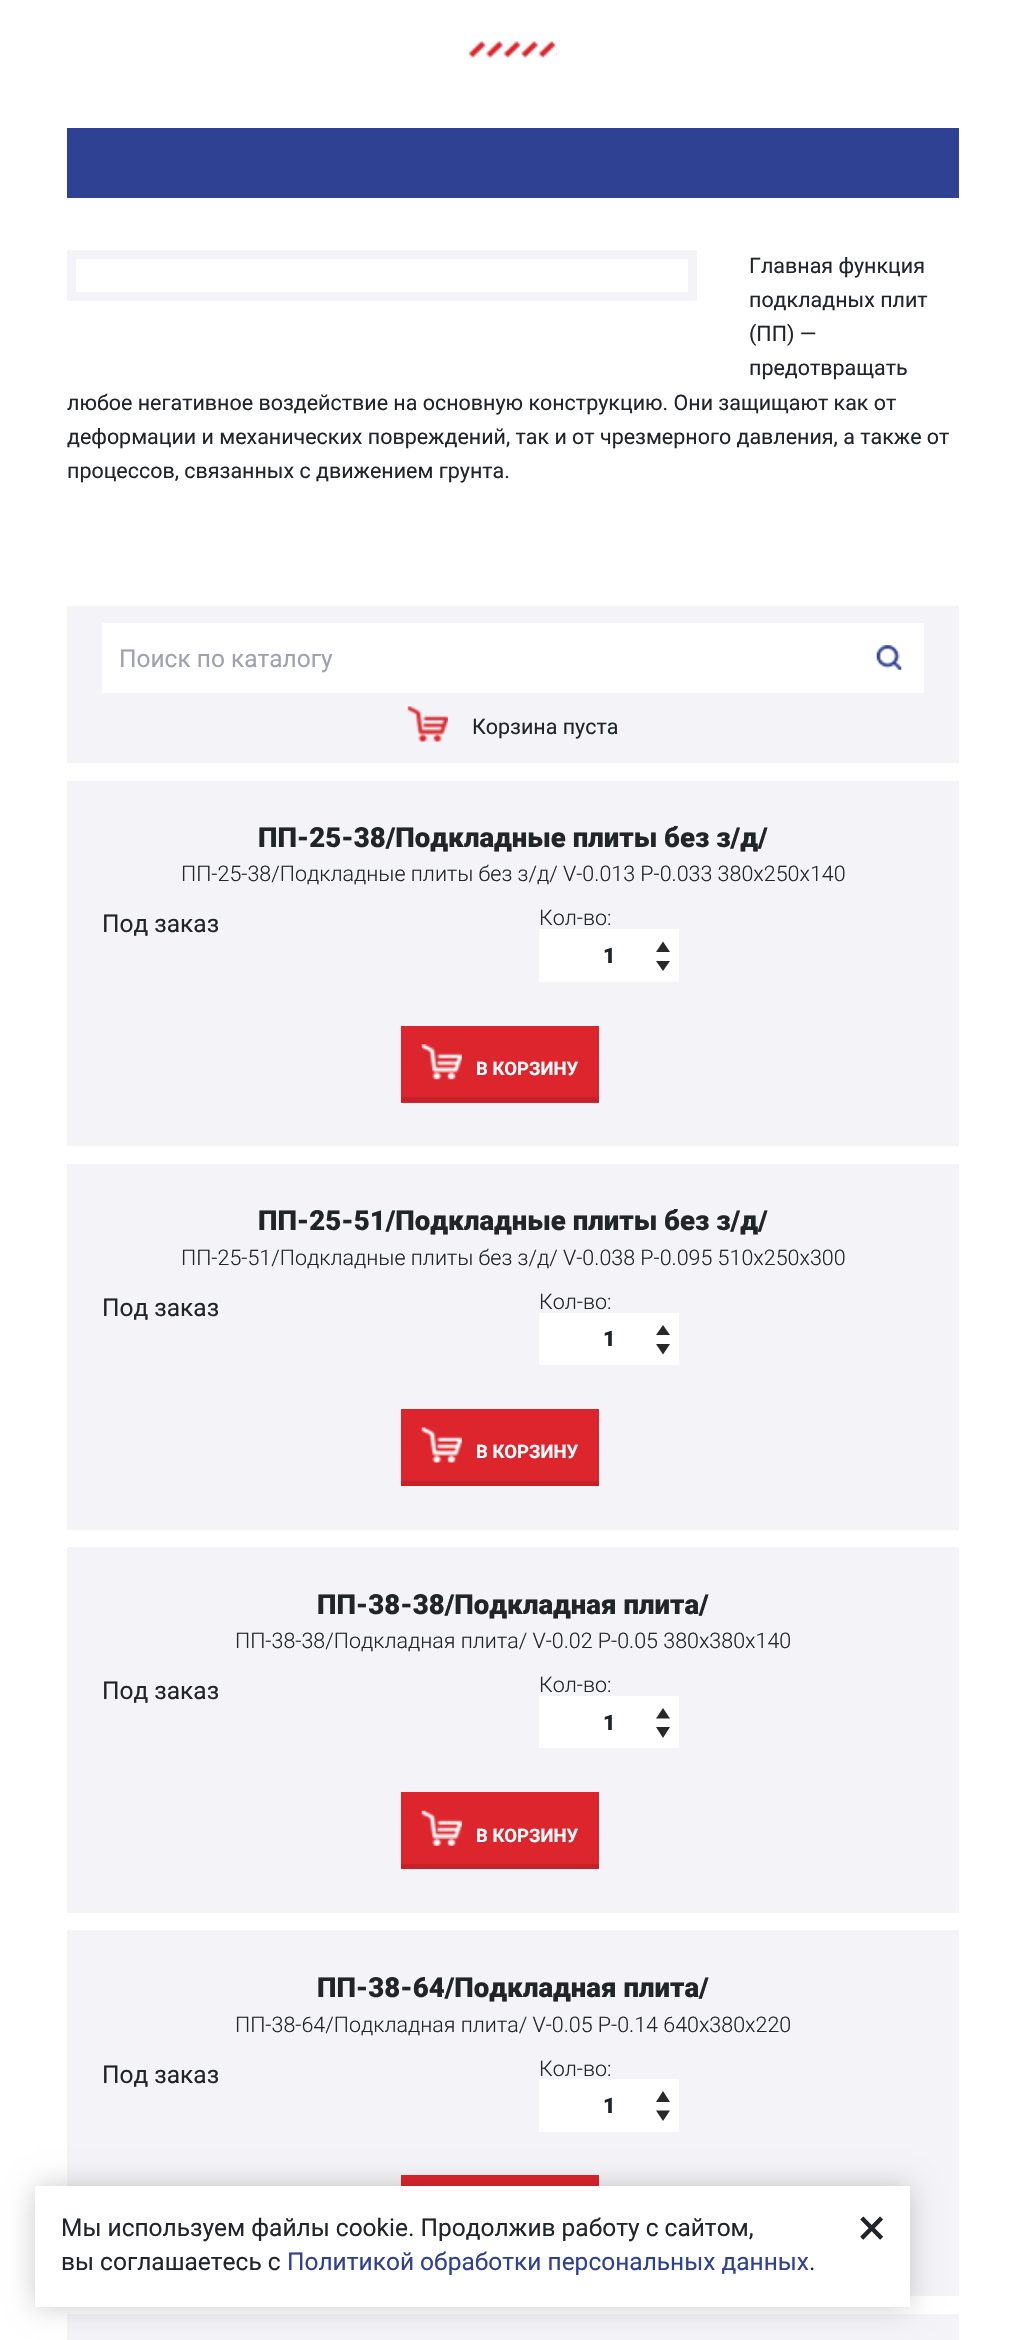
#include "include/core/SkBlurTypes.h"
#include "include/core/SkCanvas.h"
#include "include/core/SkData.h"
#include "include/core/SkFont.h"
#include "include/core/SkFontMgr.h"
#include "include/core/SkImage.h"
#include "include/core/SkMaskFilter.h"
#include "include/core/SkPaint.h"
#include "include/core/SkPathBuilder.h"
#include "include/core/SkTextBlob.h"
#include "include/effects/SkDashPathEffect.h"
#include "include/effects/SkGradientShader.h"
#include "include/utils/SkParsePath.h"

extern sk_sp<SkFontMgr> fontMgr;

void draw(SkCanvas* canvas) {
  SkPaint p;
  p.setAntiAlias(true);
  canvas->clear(SK_ColorWHITE);
  canvas->drawImageRect(SkImages::DeferredFromEncodedData(SkData::MakeFromFileName("images/1.png")), SkRect::MakeLTRB(469, 41, 557, 58), SkSamplingOptions());
  p.setColor(SkColorSetRGB(46, 65, 146));
  canvas->drawRect(SkRect::MakeLTRB(67, 128, 959, 198), p);
  p.setStyle(SkPaint::kStroke_Style);
  p.setStrokeWidth(9);
  p.setColor(SkColorSetRGB(244, 244, 248));
  canvas->drawRect(SkRect::MakeLTRB(71.5f, 254.5f, 692.5f, 296.5f), p);
  p.setStyle(SkPaint::kFill_Style);
  canvas->drawRect(SkRect::MakeLTRB(67, 606, 959, 763), p);
  p.setColor(SK_ColorWHITE);
  canvas->drawRect(SkRect::MakeLTRB(102, 623, 924, 693), p);
  canvas->drawImageRect(SkImages::DeferredFromEncodedData(SkData::MakeFromFileName("images/2.png")), SkRect::MakeLTRB(876, 645, 902, 670), SkSamplingOptions());
  canvas->drawImageRect(SkImages::DeferredFromEncodedData(SkData::MakeFromFileName("images/3.png")), SkRect::MakeLTRB(407, 706, 448, 742), SkSamplingOptions());
  p.setColor(SkColorSetRGB(244, 244, 248));
  canvas->drawRect(SkRect::MakeLTRB(67, 781, 959, 1146), p);
  p.setColor(SK_ColorWHITE);
  canvas->drawRect(SkRect::MakeLTRB(539, 929, 679, 982), p);
  p.setColor(SkColorSetRGB(41, 41, 41));
  canvas->drawPath(SkPathBuilder().moveTo(670, 952).lineTo(656, 952).lineTo(663, 941.5f).close().moveTo(656, 961).lineTo(670, 961).lineTo(663, 971).close().detach(), p);
  p.setColor(SkColorSetRGB(220, 37, 44));
  canvas->drawRect(SkRect::MakeLTRB(401, 1026, 599, 1103), p);
  p.setColor(SkColorSetRGB(198, 33, 40));
  canvas->drawRect(SkRect::MakeLTRB(401, 1097, 599, 1102), p);
  canvas->drawImageRect(SkImages::DeferredFromEncodedData(SkData::MakeFromFileName("images/4.png")), SkRect::MakeLTRB(421, 1044, 462, 1080), SkSamplingOptions());
  p.setColor(SkColorSetRGB(244, 244, 248));
  canvas->drawRect(SkRect::MakeLTRB(67, 1164, 959, 1530), p);
  p.setColor(SK_ColorWHITE);
  canvas->drawRect(SkRect::MakeLTRB(539, 1313, 679, 1365), p);
  p.setColor(SkColorSetRGB(41, 41, 41));
  canvas->drawPath(SkPathBuilder().moveTo(670, 1335).lineTo(656, 1335).lineTo(663, 1325).close().moveTo(656, 1344).lineTo(670, 1344).lineTo(663, 1354.5f).close().detach(), p);
  p.setColor(SkColorSetRGB(220, 37, 44));
  canvas->drawRect(SkRect::MakeLTRB(401, 1409, 599, 1481), p);
  p.setColor(SkColorSetRGB(198, 33, 40));
  canvas->drawRect(SkRect::MakeLTRB(401, 1481, 599, 1486), p);
  canvas->drawImageRect(SkImages::DeferredFromEncodedData(SkData::MakeFromFileName("images/5.png")), SkRect::MakeLTRB(421, 1427, 462, 1463), SkSamplingOptions());
  p.setColor(SkColorSetRGB(244, 244, 248));
  canvas->drawRect(SkRect::MakeLTRB(67, 1547, 959, 1913), p);
  p.setColor(SK_ColorWHITE);
  canvas->drawRect(SkRect::MakeLTRB(539, 1696, 679, 1748), p);
  p.setColor(SkColorSetRGB(41, 41, 41));
  canvas->drawPath(SkPathBuilder().moveTo(670, 1718.5f).lineTo(656, 1718.5f).lineTo(663, 1708).close().moveTo(656, 1727).lineTo(670, 1727).lineTo(663, 1738).close().detach(), p);
  p.setColor(SkColorSetRGB(220, 37, 44));
  canvas->drawRect(SkRect::MakeLTRB(401, 1792, 599, 1864), p);
  p.setColor(SkColorSetRGB(198, 33, 40));
  canvas->drawRect(SkRect::MakeLTRB(401, 1864, 599, 1869), p);
  canvas->drawImageRect(SkImages::DeferredFromEncodedData(SkData::MakeFromFileName("images/6.png")), SkRect::MakeLTRB(421, 1810, 462, 1846), SkSamplingOptions());
  p.setColor(SkColorSetRGB(244, 244, 248));
  canvas->drawRect(SkRect::MakeLTRB(67, 1930, 959, 2296), p);
  p.setColor(SK_ColorWHITE);
  canvas->drawRect(SkRect::MakeLTRB(539, 2079, 679, 2132), p);
  p.setColor(SkColorSetRGB(41, 41, 41));
  canvas->drawPath(SkPathBuilder().moveTo(670, 2102).lineTo(656, 2102).lineTo(663, 2091).close().moveTo(656, 2110.5f).lineTo(670, 2110.5f).lineTo(663, 2121).close().detach(), p);
  p.setColor(SkColorSetRGB(220, 37, 44));
  canvas->drawRect(SkRect::MakeLTRB(401, 2175, 599, 2186), p);
  p.setColor(SkColorSetRGB(244, 244, 248));
  canvas->drawRect(SkRect::MakeLTRB(67, 2314, 959, 2340), p);
  p.setColor(SkColorSetARGB(51, 0, 0, 0));
  p.setMaskFilter(SkMaskFilter::MakeBlur(kNormal_SkBlurStyle, 13));
  canvas->drawRect(SkRect::MakeLTRB(35, 2186, 910, 2307), p);
  p.setMaskFilter(nullptr);
  p.setColor(SK_ColorWHITE);
  canvas->drawRect(SkRect::MakeLTRB(35, 2186, 910, 2307), p);
  SkFont font1(fontMgr->matchFamilyStyle("Roboto", SkFontStyle::Normal()), 21.45f);
  font1.setSubpixel(true);
  p.setColor(SkColorSetRGB(33, 37, 41));
  canvas->drawString("Главная функция", 749, 273, font1, p);
  canvas->drawString("подкладных плит", 749, 307, font1, p);
  canvas->drawString("(ПП) —", 749, 341, font1, p);
  canvas->drawString("предотвращать", 749, 375, font1, p);
  canvas->drawString("любое негативное воздействие на основную конструкцию. Они защищают как от", 67, 410, font1, p);
  canvas->drawString("деформации и механических повреждений, так и от чрезмерного давления, а также от", 67, 444, font1, p);
  canvas->drawString("процессов, связанных с движением грунта.", 67, 478, font1, p);
  SkFont font2(fontMgr->matchFamilyStyle("Roboto", SkFontStyle::Normal()), 24.5f);
  font2.setSubpixel(true);
  p.setColor(SkColorSetRGB(160, 160, 181));
  canvas->drawString("Поиск по каталогу", 119, 667, font2, p);
  p.setColor(SkColorSetRGB(33, 37, 41));
  canvas->drawString("Корзина пуста", 472, 734, font1, p);
  SkFont font3(fontMgr->matchFamilyStyle("Roboto", SkFontStyle(900, SkFontStyle::kNormal_Width, SkFontStyle::kUpright_Slant)), 27.6f);
  font3.setSubpixel(true);
  canvas->drawString("ПП-25-38/Подкладные плиты без з/д/", 258, 847, font3, p);
  SkFont font4(fontMgr->matchFamilyStyle("Roboto", SkFontStyle(300, SkFontStyle::kNormal_Width, SkFontStyle::kUpright_Slant)), 21.45f);
  font4.setSubpixel(true);
  canvas->drawString("ПП-25-38/Подкладные плиты без з/д/ V-0.013 P-0.033 380x250x140", 181, 881, font4, p);
  canvas->drawString("Под заказ", 102, 932, font2, p);
  canvas->drawString("Кол-во:", 539, 925, font4, p);
  SkFont font5(fontMgr->matchFamilyStyle("Roboto", SkFontStyle(900, SkFontStyle::kNormal_Width, SkFontStyle::kUpright_Slant)), 21.45f);
  font5.setSubpixel(true);
  canvas->drawString("1", 603, 963, font5, p);
  SkFont font6(fontMgr->matchFamilyStyle("Roboto", SkFontStyle::Bold()), 18.5f);
  font6.setSubpixel(true);
  p.setColor(SK_ColorWHITE);
  canvas->drawString("В КОРЗИНУ", 476, 1075, font6, p);
  p.setColor(SkColorSetRGB(33, 37, 41));
  canvas->drawString("ПП-25-51/Подкладные плиты без з/д/", 258, 1230, font3, p);
  canvas->drawString("ПП-25-51/Подкладные плиты без з/д/ V-0.038 P-0.095 510x250x300", 181, 1265, font4, p);
  canvas->drawString("Под заказ", 102, 1316, font2, p);
  canvas->drawString("Кол-во:", 539, 1309, font4, p);
  canvas->drawString("1", 603, 1346, font5, p);
  p.setColor(SK_ColorWHITE);
  canvas->drawString("В КОРЗИНУ", 476, 1458, font6, p);
  p.setColor(SkColorSetRGB(33, 37, 41));
  canvas->drawString("ПП-38-38/Подкладная плита/", 317, 1614, font3, p);
  canvas->drawString("ПП-38-38/Подкладная плита/ V-0.02 P-0.05 380х380х140", 235, 1648, font4, p);
  canvas->drawString("Под заказ", 102, 1699, font2, p);
  canvas->drawString("Кол-во:", 539, 1692, font4, p);
  canvas->drawString("1", 603, 1730, font5, p);
  p.setColor(SK_ColorWHITE);
  canvas->drawString("В КОРЗИНУ", 476, 1842, font6, p);
  p.setColor(SkColorSetRGB(33, 37, 41));
  canvas->drawString("ПП-38-64/Подкладная плита/", 317, 1997, font3, p);
  canvas->drawString("ПП-38-64/Подкладная плита/ V-0.05 P-0.14 640х380х220", 235, 2032, font4, p);
  canvas->drawString("Под заказ", 102, 2083, font2, p);
  canvas->drawString("Кол-во:", 539, 2076, font4, p);
  canvas->drawString("1", 603, 2113, font5, p);
  canvas->drawString("Мы используем файлы cookie. Продолжив работу с сайтом,", 61, 2236, font2, p);
  SkFont font7(fontMgr->matchFamilyStyle("Roboto", SkFontStyle::Normal()), 52);
  font7.setSubpixel(true);
  canvas->drawString("×", 858, 2245, font7, p);
  canvas->drawString("вы соглашаетесь с", 61, 2270, font2, p);
  p.setColor(SkColorSetRGB(46, 65, 146));
  canvas->drawString("Политикой обработки персональных данных", 287, 2270, font2, p);
  p.setColor(SkColorSetRGB(33, 37, 41));
  canvas->drawString(".", 809, 2270, font2, p);
}
